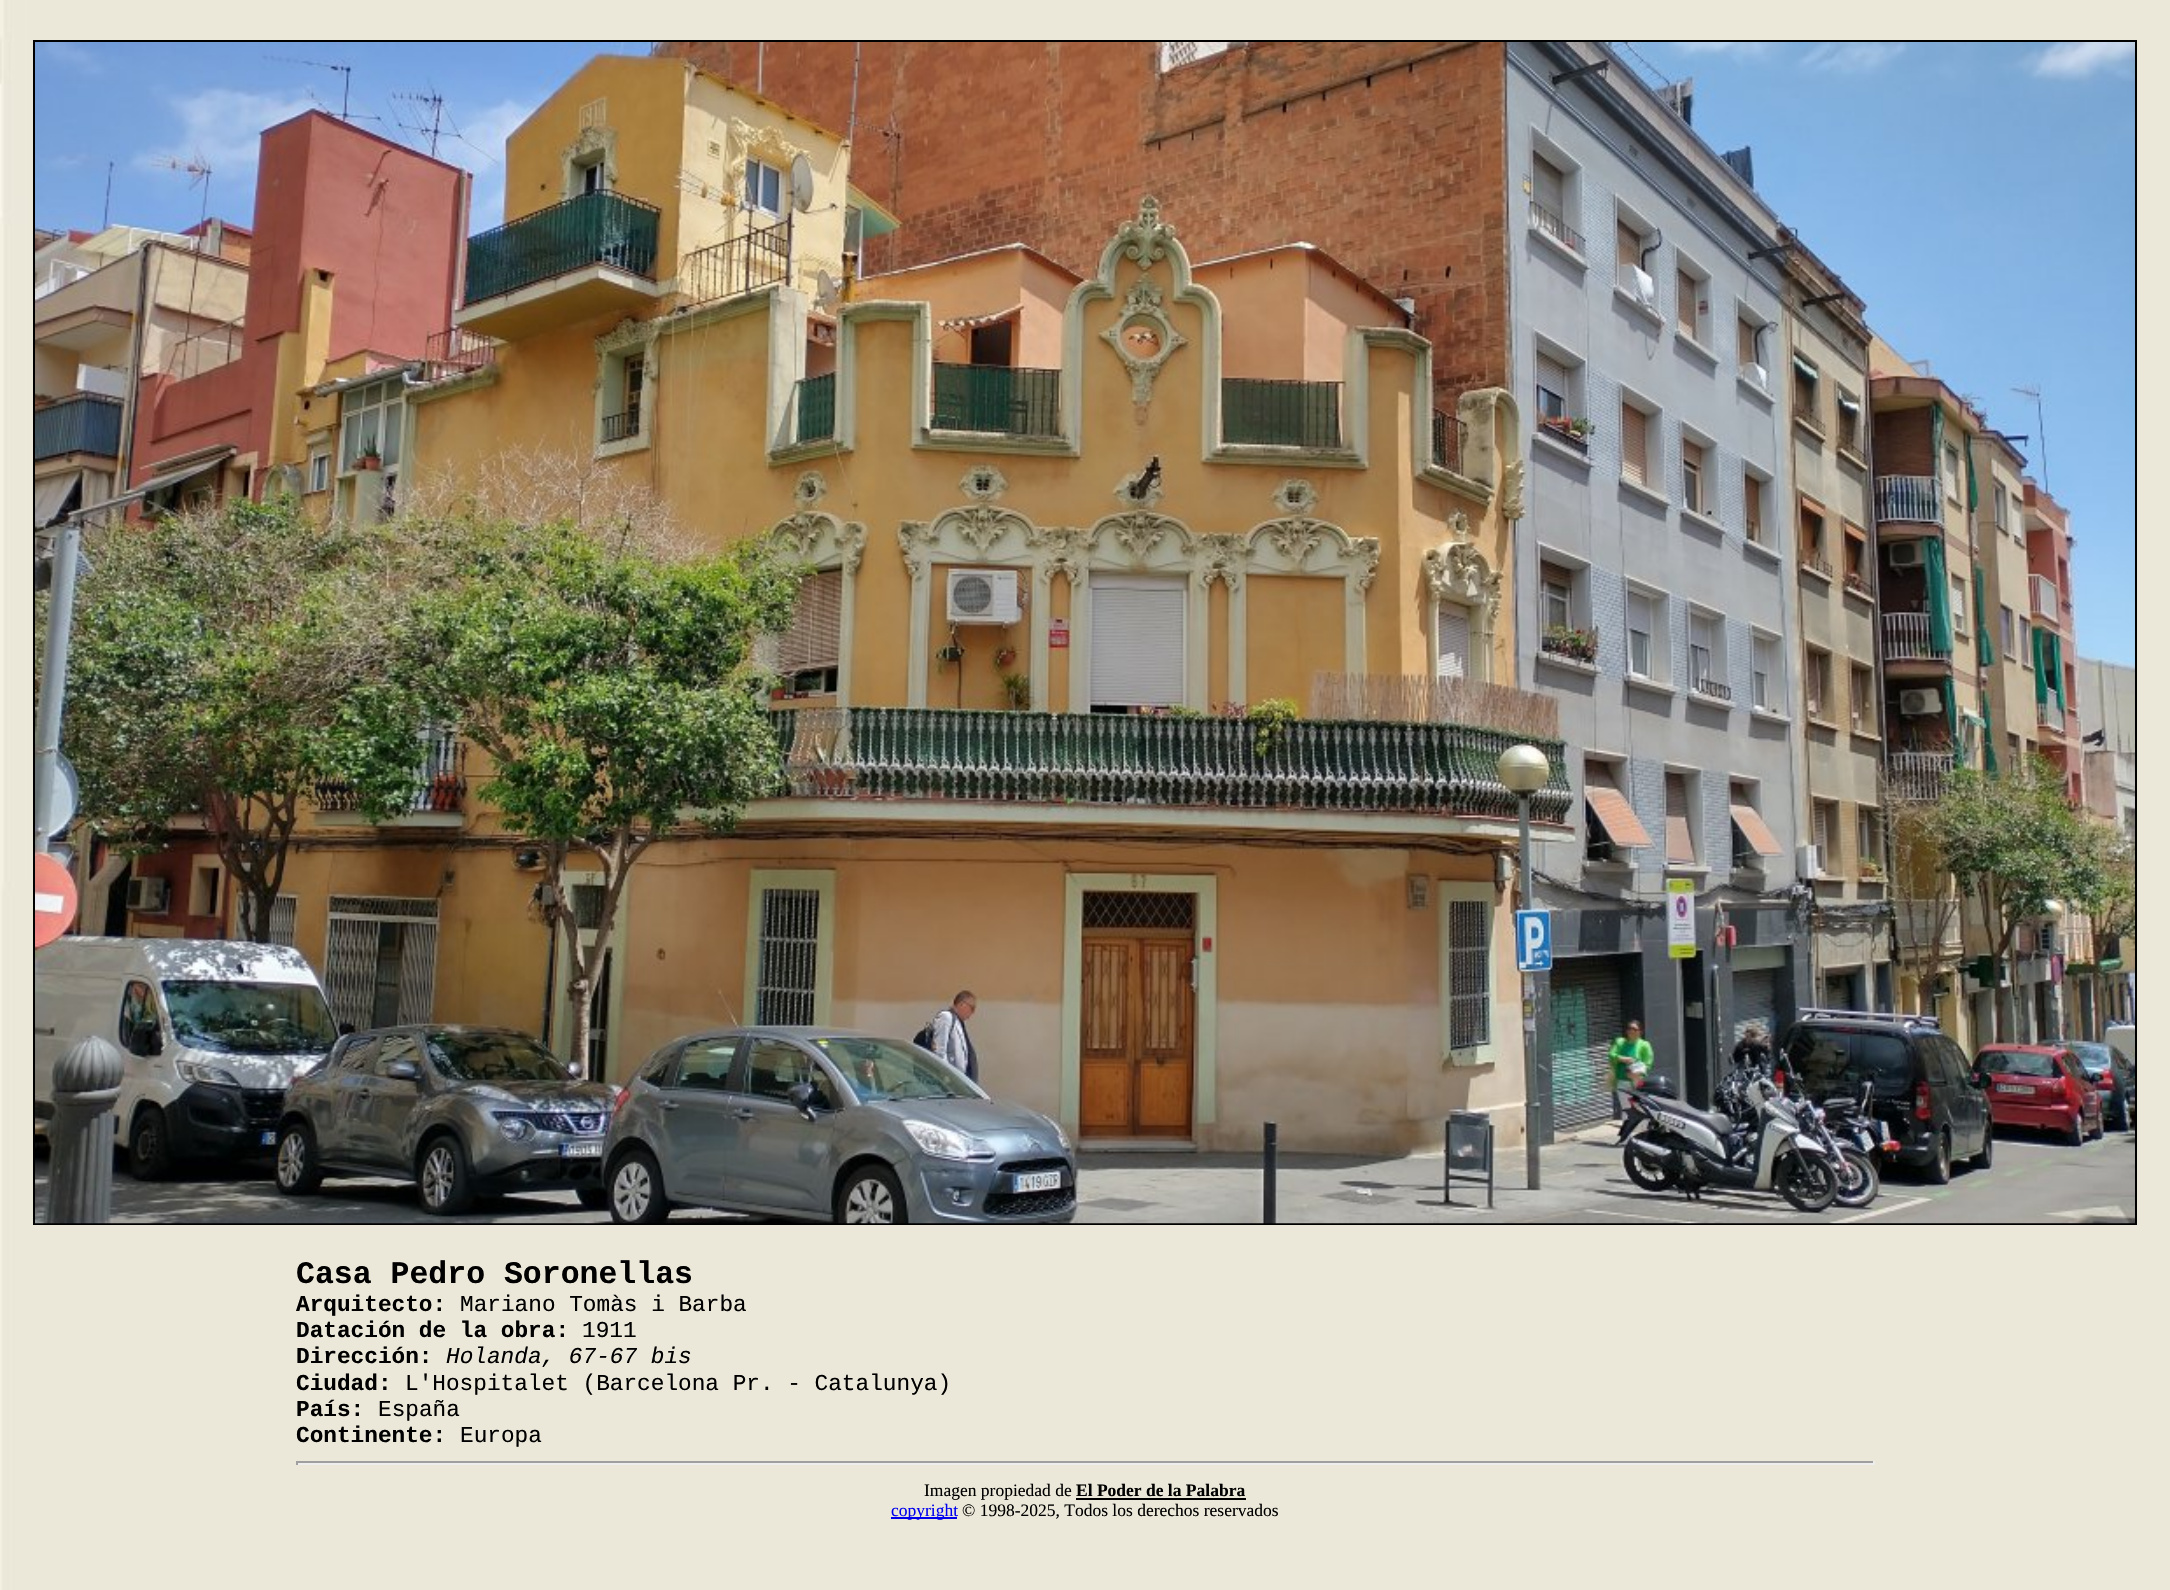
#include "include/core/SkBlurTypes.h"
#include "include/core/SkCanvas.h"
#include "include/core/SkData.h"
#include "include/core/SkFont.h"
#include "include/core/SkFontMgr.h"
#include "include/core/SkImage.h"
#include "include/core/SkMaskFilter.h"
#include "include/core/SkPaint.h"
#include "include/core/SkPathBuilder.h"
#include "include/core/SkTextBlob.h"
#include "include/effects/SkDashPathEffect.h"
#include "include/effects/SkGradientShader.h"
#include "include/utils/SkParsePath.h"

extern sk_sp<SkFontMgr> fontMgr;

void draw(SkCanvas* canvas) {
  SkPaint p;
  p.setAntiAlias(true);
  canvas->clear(SK_ColorWHITE);
  canvas->drawImageRect(SkImages::DeferredFromEncodedData(SkData::MakeFromFileName("images/1.png")), SkRect::MakeLTRB(0, 0, 2170, 1590), SkSamplingOptions());
  p.setStyle(SkPaint::kStroke_Style);
  p.setStrokeWidth(2);
  p.setColor(SK_ColorBLACK);
  canvas->drawRect(SkRect::MakeLTRB(34, 41, 2136, 1224), p);
  canvas->drawImageRect(SkImages::DeferredFromEncodedData(SkData::MakeFromFileName("images/2.png")), SkRect::MakeLTRB(35, 42, 2135, 1224), SkSamplingOptions());
  p.setStyle(SkPaint::kFill_Style);
  p.setColor(SkColorSetRGB(159, 159, 159));
  canvas->drawRect(SkRect::MakeLTRB(296, 1461, 1874, 1463), p);
  p.setColor(SkColorSetRGB(238, 238, 238));
  canvas->drawRect(SkRect::MakeLTRB(1873, 1461, 1875, 1465), p);
  canvas->drawRect(SkRect::MakeLTRB(296, 1463, 1874, 1465), p);
  p.setColor(SkColorSetRGB(159, 159, 159));
  canvas->drawRect(SkRect::MakeLTRB(296, 1461, 298, 1465), p);
  p.setColor(SK_ColorBLACK);
  canvas->drawRect(SkRect::MakeLTRB(1076, 1498, 1246, 1500), p);
  p.setColor(SkColorSetRGB(0, 0, 238));
  canvas->drawRect(SkRect::MakeLTRB(891, 1517, 957, 1519), p);
  SkFont font1(fontMgr->matchFamilyStyle("Liberation Mono", SkFontStyle::Bold()), 31.5f);
  font1.setSubpixel(true);
  p.setColor(SK_ColorBLACK);
  canvas->drawString("Casa Pedro Soronellas", 296, 1283, font1, p);
  SkFont font2(fontMgr->matchFamilyStyle("Liberation Mono", SkFontStyle::Bold()), 22.75f);
  font2.setSubpixel(true);
  canvas->drawString("Arquitecto:", 296, 1311, font2, p);
  SkFont font3(fontMgr->matchFamilyStyle("Liberation Mono", SkFontStyle::Normal()), 22.75f);
  font3.setSubpixel(true);
  canvas->drawString("Mariano Tomàs i Barba", 460, 1311, font3, p);
  canvas->drawString("Datación de la obra:", 296, 1337, font2, p);
  canvas->drawString("1911", 582, 1337, font3, p);
  canvas->drawString("Dirección:", 296, 1363, font2, p);
  SkFont font4(fontMgr->matchFamilyStyle("Liberation Mono", SkFontStyle::Italic()), 22.75f);
  font4.setSubpixel(true);
  canvas->drawString("Holanda, 67-67 bis", 446, 1363, font4, p);
  canvas->drawString("Ciudad:", 296, 1390, font2, p);
  canvas->drawString("L'Hospitalet (Barcelona Pr. - Catalunya)", 405, 1390, font3, p);
  canvas->drawString("País:", 296, 1416, font2, p);
  canvas->drawString("España", 378, 1416, font3, p);
  canvas->drawString("Continente:", 296, 1442, font2, p);
  canvas->drawString("Europa", 460, 1442, font3, p);
  SkFont font5(fontMgr->matchFamilyStyle("Liberation Serif", SkFontStyle::Normal()), 17.5f);
  font5.setSubpixel(true);
  canvas->drawString("Imagen propiedad de", 924, 1496, font5, p);
  SkFont font6(fontMgr->matchFamilyStyle("Liberation Serif", SkFontStyle::Bold()), 17.5f);
  font6.setSubpixel(true);
  canvas->drawString("El Poder de la Palabra", 1076, 1496, font6, p);
  p.setColor(SkColorSetRGB(0, 0, 238));
  canvas->drawString("copyright", 891, 1516, font5, p);
  p.setColor(SK_ColorBLACK);
  canvas->drawString("© 1998-2025, Todos los derechos reservados", 962, 1516, font5, p);
}
